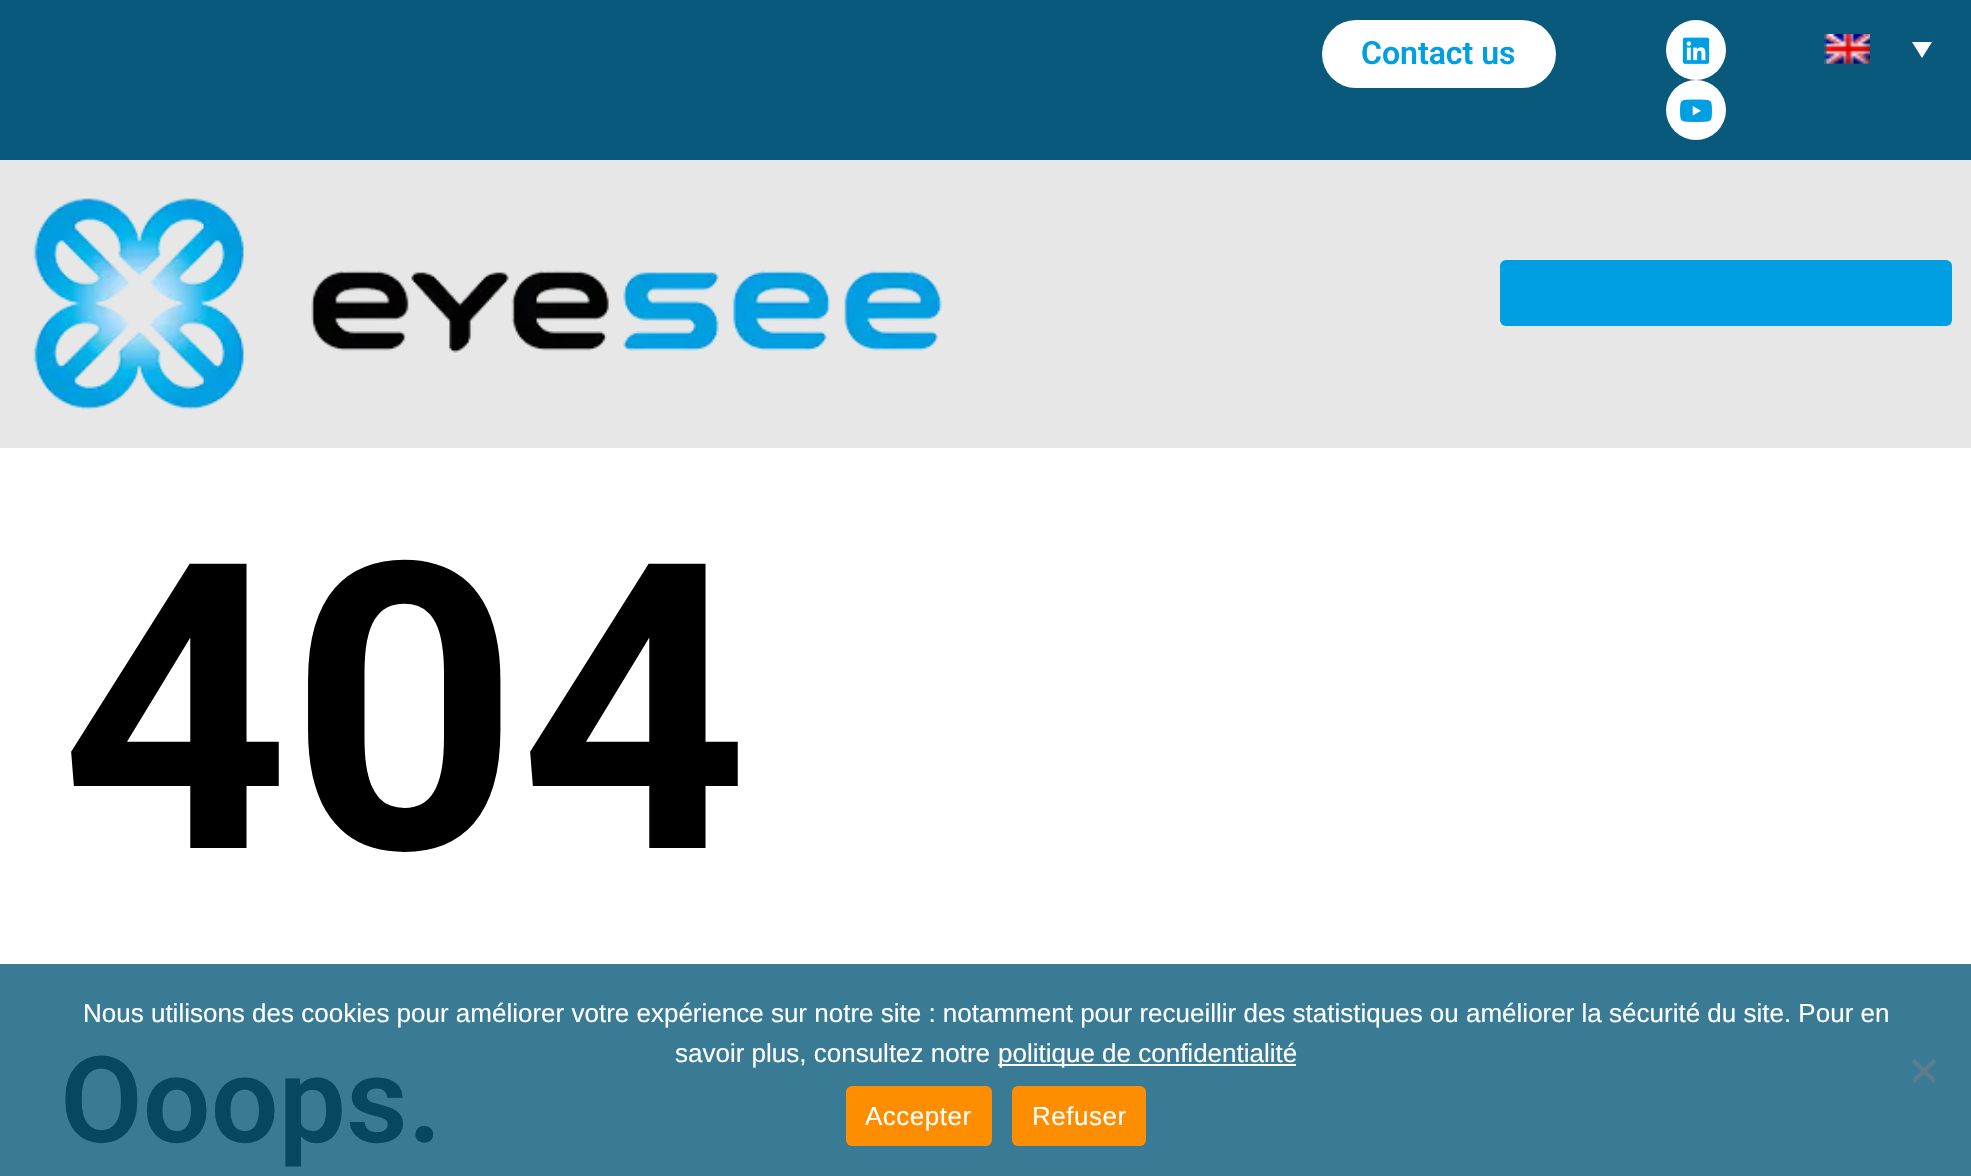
#include "include/core/SkBlurTypes.h"
#include "include/core/SkCanvas.h"
#include "include/core/SkData.h"
#include "include/core/SkFont.h"
#include "include/core/SkFontMgr.h"
#include "include/core/SkImage.h"
#include "include/core/SkMaskFilter.h"
#include "include/core/SkPaint.h"
#include "include/core/SkPathBuilder.h"
#include "include/core/SkTextBlob.h"
#include "include/effects/SkDashPathEffect.h"
#include "include/effects/SkGradientShader.h"
#include "include/utils/SkParsePath.h"

extern sk_sp<SkFontMgr> fontMgr;

void draw(SkCanvas* canvas) {
  SkPaint p;
  p.setAntiAlias(true);
  auto spacedText = [&](const char* s, float x, float y, const SkFont& font, const SkPaint& ink, float letter, float word) {
    std::vector<SkGlyphID> glyphs(font.countText(s, strlen(s), SkTextEncoding::kUTF8));
    std::vector<float> xs(glyphs.size());
    font.textToGlyphs(s, strlen(s), SkTextEncoding::kUTF8, glyphs);
    font.getXPos(glyphs, xs, x);
    float extra = 0;
    for (size_t i = 0; i < glyphs.size(); i++) {
      xs[i] += extra;
      extra += letter + word * (glyphs[i] == font.unicharToGlyph(' '));
    }
    canvas->drawTextBlob(SkTextBlob::MakeFromPosHGlyphs(glyphs, xs, y, font), 0, 0, ink);
  };
  canvas->clear(SkColorSetRGB(231, 231, 231));
  p.setColor(SkColorSetRGB(8, 89, 123));
  canvas->drawRect(SkRect::MakeLTRB(0, 0, 1971, 160), p);
  p.setColor(SK_ColorWHITE);
  canvas->drawRoundRect(SkRect::MakeLTRB(1322, 20, 1556, 88), 34, 34, p);
  canvas->drawCircle(1696, 50, 30, p);
  canvas->drawImageRect(SkImages::DeferredFromEncodedData(SkData::MakeFromFileName("images/1.png")), SkRect::MakeLTRB(1682, 37, 1710, 64), SkSamplingOptions());
  canvas->drawCircle(1696, 110, 30, p);
  canvas->drawImageRect(SkImages::DeferredFromEncodedData(SkData::MakeFromFileName("images/2.png")), SkRect::MakeLTRB(1680, 99, 1712, 122), SkSamplingOptions());
  canvas->drawImageRect(SkImages::DeferredFromEncodedData(SkData::MakeFromFileName("images/3.png")), SkRect::MakeLTRB(1824, 34, 1870, 64), SkSamplingOptions());
  canvas->drawPath(SkPathBuilder().moveTo(1912, 42).lineTo(1932, 42).lineTo(1922, 58).close().detach(), p);
  canvas->drawImageRect(SkImages::DeferredFromEncodedData(SkData::MakeFromFileName("images/4.png")), SkRect::MakeLTRB(33, 198, 942, 410), SkSamplingOptions());
  p.setColor(SkColorSetRGB(0, 159, 227));
  canvas->drawRoundRect(SkRect::MakeLTRB(1500, 260, 1952, 326), 6, 6, p);
  p.setColor(SK_ColorWHITE);
  canvas->drawRect(SkRect::MakeLTRB(0, 448, 1971, 964), p);
  p.setColor(SkColorSetRGB(57, 122, 149));
  canvas->drawRect(SkRect::MakeLTRB(0, 964, 1971, 1176), p);
  p.setColor(SK_ColorWHITE);
  canvas->drawRect(SkRect::MakeLTRB(998, 1064, 1296, 1066), p);
  p.setColor(SkColorSetRGB(93, 125, 139));
  canvas->drawPath(SkPathBuilder().moveTo(1933, 1059).lineTo(1936, 1062).lineTo(1915, 1083).lineTo(1912, 1080).close().detach(), p);
  canvas->drawPath(SkPathBuilder().moveTo(1912, 1062).lineTo(1915, 1059).lineTo(1936, 1080).lineTo(1933, 1083).close().detach(), p);
  p.setColor(SkColorSetRGB(255, 141, 0));
  canvas->drawRoundRect(SkRect::MakeLTRB(846, 1086, 992, 1146), 6, 6, p);
  canvas->drawRoundRect(SkRect::MakeLTRB(1012, 1086, 1146, 1146), 6, 6, p);
  SkFont font1(fontMgr->matchFamilyStyle("Roboto", SkFontStyle(600, SkFontStyle::kNormal_Width, SkFontStyle::kUpright_Slant)), 32);
  font1.setSubpixel(true);
  p.setColor(SkColorSetRGB(0, 159, 227));
  canvas->drawString("Contact us", 1361, 64, font1, p);
  SkFont font2(fontMgr->matchFamilyStyle("Roboto", SkFontStyle::Bold()), 400);
  font2.setSubpixel(true);
  p.setColor(SK_ColorBLACK);
  canvas->drawString("404", 60, 848, font2, p);
  SkFont font3(fontMgr->matchFamilyStyle("Roboto", SkFontStyle(600, SkFontStyle::kNormal_Width, SkFontStyle::kUpright_Slant)), 120);
  font3.setSubpixel(true);
  p.setColor(SkColorSetRGB(6, 71, 98));
  canvas->drawString("Ooops.", 60, 1142, font3, p);
  SkFont font4(fontMgr->matchFamilyStyle("Liberation Sans", SkFontStyle::Normal()), 26);
  font4.setSubpixel(true);
  p.setColor(SK_ColorWHITE);
  canvas->drawString("Nous utilisons des cookies pour améliorer votre expérience sur notre site : notamment pour recueillir des statistiques ou améliorer la sécurité du site. Pour en", 83, 1022, font4, p);
  canvas->drawString("savoir plus, consultez notre", 675, 1062, font4, p);
  canvas->drawString("politique de confidentialité", 998, 1062, font4, p);
  spacedText("Accepter", 865, 1125, font4, p, 0.5f, 0);
  spacedText("Refuser", 1032, 1125, font4, p, 0.5f, 0);
}
